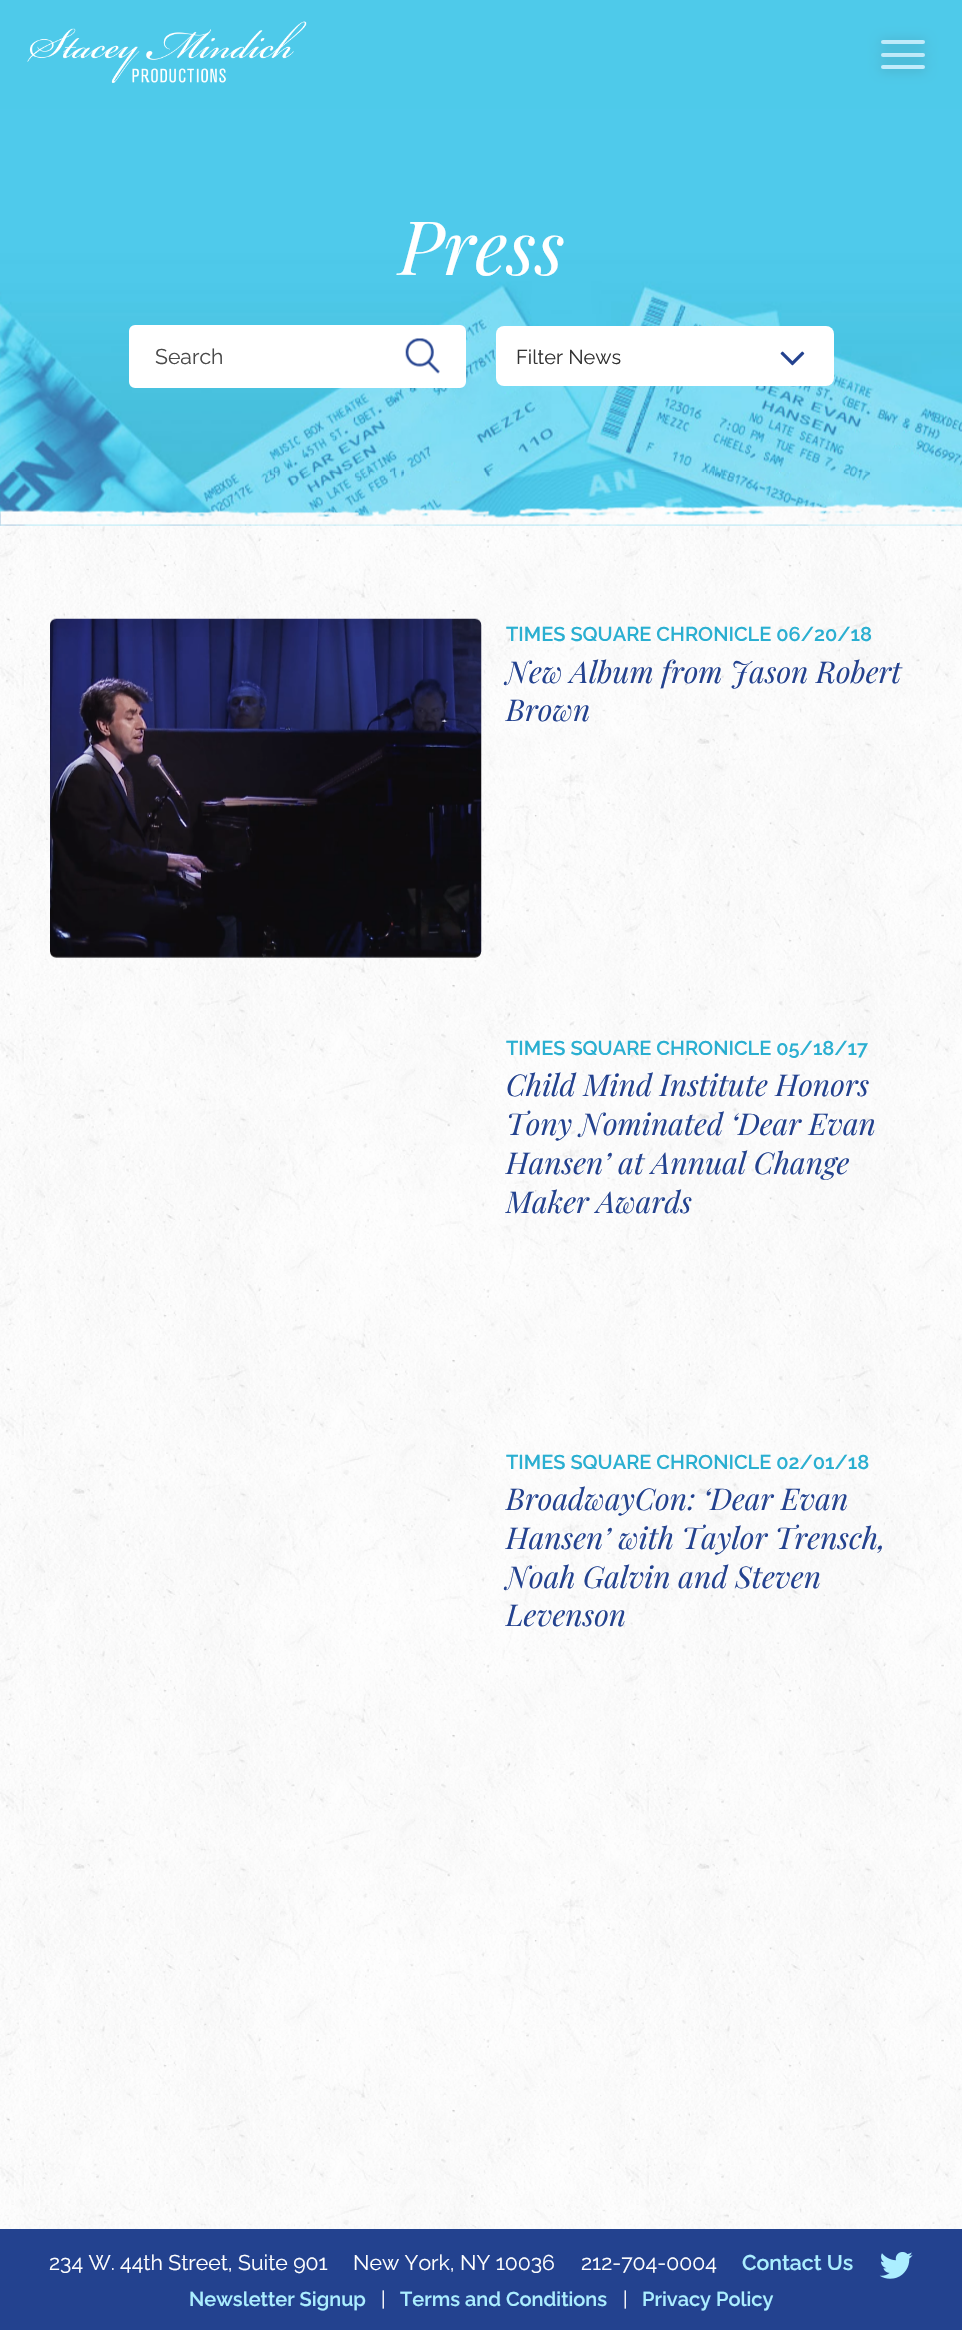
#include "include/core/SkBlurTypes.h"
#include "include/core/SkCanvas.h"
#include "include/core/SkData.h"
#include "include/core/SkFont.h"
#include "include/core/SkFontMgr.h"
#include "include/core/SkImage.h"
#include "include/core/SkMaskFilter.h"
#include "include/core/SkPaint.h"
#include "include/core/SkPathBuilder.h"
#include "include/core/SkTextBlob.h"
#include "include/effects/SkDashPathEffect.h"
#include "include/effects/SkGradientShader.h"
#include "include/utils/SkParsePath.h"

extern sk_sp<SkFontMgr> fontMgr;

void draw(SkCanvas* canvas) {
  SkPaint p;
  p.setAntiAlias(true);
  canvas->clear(SK_ColorWHITE);
  canvas->drawImageRect(SkImages::DeferredFromEncodedData(SkData::MakeFromFileName("images/1.png")), SkRect::MakeLTRB(0, 524, 962, 2229), SkSamplingOptions());
  p.setColor(SkColorSetRGB(78, 202, 234));
  canvas->drawRect(SkRect::MakeLTRB(0, 0, 962, 109), p);
  canvas->drawImageRect(SkImages::DeferredFromEncodedData(SkData::MakeFromFileName("images/2.png")), SkRect::MakeLTRB(27, 21, 307, 83), SkSamplingOptions());
  p.setColor(SkColorSetRGB(75, 174, 199));
  p.setMaskFilter(SkMaskFilter::MakeBlur(kNormal_SkBlurStyle, 6));
  canvas->drawRoundRect(SkRect::MakeLTRB(880, 40, 926, 46), 3, 3, p);
  p.setMaskFilter(nullptr);
  p.setColor(SkColorSetRGB(194, 236, 251));
  canvas->drawRoundRect(SkRect::MakeLTRB(881, 40, 925, 44), 2, 2, p);
  p.setColor(SkColorSetRGB(75, 174, 199));
  p.setMaskFilter(SkMaskFilter::MakeBlur(kNormal_SkBlurStyle, 6));
  canvas->drawRoundRect(SkRect::MakeLTRB(880, 53, 926, 59), 3, 3, p);
  p.setMaskFilter(nullptr);
  p.setColor(SkColorSetRGB(194, 236, 251));
  canvas->drawRoundRect(SkRect::MakeLTRB(881, 53, 925, 57), 2, 2, p);
  p.setColor(SkColorSetRGB(75, 174, 199));
  p.setMaskFilter(SkMaskFilter::MakeBlur(kNormal_SkBlurStyle, 6));
  canvas->drawRoundRect(SkRect::MakeLTRB(880, 65, 926, 71), 3, 3, p);
  p.setMaskFilter(nullptr);
  p.setColor(SkColorSetRGB(194, 236, 251));
  canvas->drawRoundRect(SkRect::MakeLTRB(881, 65, 925, 69), 2, 2, p);
  canvas->drawImageRect(SkImages::DeferredFromEncodedData(SkData::MakeFromFileName("images/3.png")), SkRect::MakeLTRB(0, 109, 962, 526), SkSamplingOptions());
  p.setColor(SK_ColorWHITE);
  canvas->drawRoundRect(SkRect::MakeLTRB(130.5f, 326.5f, 464.5f, 386.5f), 4.5f, 4.5f, p);
  p.setStyle(SkPaint::kStroke_Style);
  p.setStrokeWidth(3);
  canvas->drawRoundRect(SkRect::MakeLTRB(130.5f, 326.5f, 464.5f, 386.5f), 4.5f, 4.5f, p);
  canvas->drawImageRect(SkImages::DeferredFromEncodedData(SkData::MakeFromFileName("images/4.png")), SkRect::MakeLTRB(405, 338, 440, 374), SkSamplingOptions());
  p.setStyle(SkPaint::kFill_Style);
  canvas->drawRoundRect(SkRect::MakeLTRB(496, 326, 834, 386), 8, 8, p);
  canvas->drawImageRect(SkImages::DeferredFromEncodedData(SkData::MakeFromFileName("images/5.png")), SkRect::MakeLTRB(780, 351, 805, 366), SkSamplingOptions());
  canvas->drawImageRect(SkImages::DeferredFromEncodedData(SkData::MakeFromFileName("images/6.png")), SkRect::MakeLTRB(0, 503, 962, 526), SkSamplingOptions());
  canvas->drawImageRect(SkImages::DeferredFromEncodedData(SkData::MakeFromFileName("images/7.png")), SkRect::MakeLTRB(50, 618, 482, 958), SkSamplingOptions());
  p.setColor(SkColorSetRGB(35, 66, 143));
  canvas->drawRect(SkRect::MakeLTRB(0, 2229, 962, 2330), p);
  canvas->drawImageRect(SkImages::DeferredFromEncodedData(SkData::MakeFromFileName("images/8.png")), SkRect::MakeLTRB(879, 2252, 913, 2279), SkSamplingOptions());
  SkFont font1(fontMgr->matchFamilyStyle("Playfair Display", SkFontStyle::Italic()), 75);
  font1.setSubpixel(true);
  p.setColor(SK_ColorWHITE);
  canvas->drawString("Press", 399, 275, font1, p);
  SkFont font2(fontMgr->matchFamilyStyle("Raleway", SkFontStyle::Normal()), 21.25f);
  font2.setSubpixel(true);
  p.setColor(SkColorSetRGB(74, 74, 74));
  canvas->drawString("Search", 155, 364, font2, p);
  SkFont font3(fontMgr->matchFamilyStyle("Raleway", SkFontStyle::Normal()), 20);
  font3.setSubpixel(true);
  p.setColor(SkColorSetRGB(51, 51, 51));
  canvas->drawString("Filter News", 516, 364, font3, p);
  SkFont font4(fontMgr->matchFamilyStyle("Raleway", SkFontStyle(600, SkFontStyle::kNormal_Width, SkFontStyle::kUpright_Slant)), 20);
  font4.setSubpixel(true);
  p.setColor(SkColorSetRGB(42, 175, 209));
  canvas->drawString("TIMES SQUARE CHRONICLE 06/20/18", 506, 641, font4, p);
  SkFont font5(fontMgr->matchFamilyStyle("Playfair Display", SkFontStyle::Italic()), 30);
  font5.setSubpixel(true);
  p.setColor(SkColorSetRGB(35, 66, 143));
  canvas->drawString("New Album from Jason Robert", 506, 683, font5, p);
  canvas->drawString("Brown", 506, 721, font5, p);
  p.setColor(SkColorSetRGB(42, 175, 209));
  canvas->drawString("TIMES SQUARE CHRONICLE 05/18/17", 506, 1055, font4, p);
  p.setColor(SkColorSetRGB(35, 66, 143));
  canvas->drawString("Child Mind Institute Honors", 506, 1096, font5, p);
  canvas->drawString("Tony Nominated ‘Dear Evan", 506, 1135, font5, p);
  canvas->drawString("Hansen’ at Annual Change", 506, 1174, font5, p);
  canvas->drawString("Maker Awards", 506, 1213, font5, p);
  p.setColor(SkColorSetRGB(42, 175, 209));
  canvas->drawString("TIMES SQUARE CHRONICLE 02/01/18", 506, 1469, font4, p);
  p.setColor(SkColorSetRGB(35, 66, 143));
  canvas->drawString("BroadwayCon: ‘Dear Evan", 506, 1510, font5, p);
  canvas->drawString("Hansen’ with Taylor Trensch,", 506, 1549, font5, p);
  canvas->drawString("Noah Galvin and Steven", 506, 1588, font5, p);
  canvas->drawString("Levenson", 506, 1626, font5, p);
  p.setColor(SK_ColorWHITE);
  canvas->drawString("234 W. 44th Street, Suite 901", 49, 2270, font2, p);
  canvas->drawString("New York, NY 10036", 353, 2270, font2, p);
  canvas->drawString("212-704-0004", 581, 2270, font2, p);
  SkFont font6(fontMgr->matchFamilyStyle("Raleway", SkFontStyle(600, SkFontStyle::kNormal_Width, SkFontStyle::kUpright_Slant)), 21.25f);
  font6.setSubpixel(true);
  p.setColor(SkColorSetRGB(171, 238, 255));
  canvas->drawString("Contact Us", 742, 2270, font6, p);
  canvas->drawString("Newsletter Signup", 189, 2306, font4, p);
  p.setColor(SK_ColorWHITE);
  canvas->drawString("|", 381, 2306, font3, p);
  p.setColor(SkColorSetRGB(171, 238, 255));
  canvas->drawString("Terms and Conditions", 400, 2306, font4, p);
  p.setColor(SK_ColorWHITE);
  canvas->drawString("|", 623, 2306, font3, p);
  p.setColor(SkColorSetRGB(171, 238, 255));
  canvas->drawString("Privacy Policy", 642, 2306, font4, p);
}
